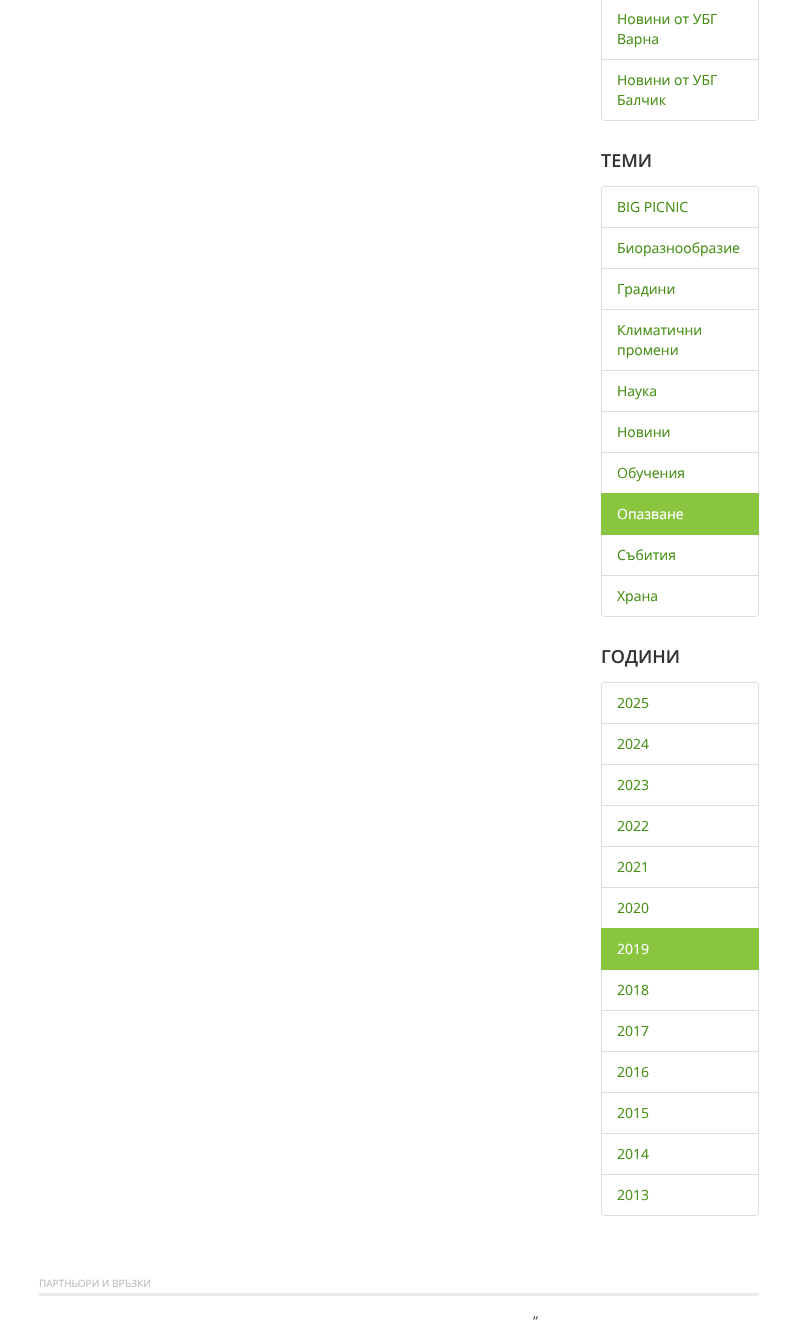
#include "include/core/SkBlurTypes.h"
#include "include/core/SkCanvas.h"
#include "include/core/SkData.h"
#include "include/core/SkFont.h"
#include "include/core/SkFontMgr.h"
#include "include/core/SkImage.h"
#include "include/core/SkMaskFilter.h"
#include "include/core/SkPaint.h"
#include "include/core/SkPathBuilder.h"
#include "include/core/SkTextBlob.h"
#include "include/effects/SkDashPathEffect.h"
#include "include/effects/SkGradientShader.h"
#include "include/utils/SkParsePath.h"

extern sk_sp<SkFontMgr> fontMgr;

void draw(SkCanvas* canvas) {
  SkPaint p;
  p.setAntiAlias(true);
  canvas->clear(SK_ColorWHITE);
  p.setStyle(SkPaint::kStroke_Style);
  p.setStrokeWidth(1);
  p.setColor(SkColorSetRGB(221, 221, 221));
  canvas->drawRect(SkRect::MakeLTRB(601.5f, -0.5f, 758.5f, 59.5f), p);
  p.setStyle(SkPaint::kFill_Style);
  p.setColor(SK_ColorWHITE);
  canvas->drawPath(SkPathBuilder().moveTo(601.5f, 59.5f).lineTo(758.5f, 59.5f).lineTo(758.5f, 117).cubicTo(758.5f, 119, 757, 120.5f, 755, 120.5f).lineTo(605, 120.5f).cubicTo(603, 120.5f, 601.5f, 119, 601.5f, 117).close().detach(), p);
  p.setStyle(SkPaint::kStroke_Style);
  p.setColor(SkColorSetRGB(221, 221, 221));
  canvas->drawPath(SkPathBuilder().moveTo(601.5f, 59.5f).lineTo(758.5f, 59.5f).lineTo(758.5f, 117).cubicTo(758.5f, 119, 757, 120.5f, 755, 120.5f).lineTo(605, 120.5f).cubicTo(603, 120.5f, 601.5f, 119, 601.5f, 117).close().detach(), p);
  canvas->drawPath(SkPathBuilder().moveTo(605, 186.5f).lineTo(755, 186.5f).cubicTo(757, 186.5f, 758.5f, 188, 758.5f, 190).lineTo(758.5f, 227.5f).lineTo(601.5f, 227.5f).lineTo(601.5f, 190).cubicTo(601.5f, 188, 603, 186.5f, 605, 186.5f).close().detach(), p);
  canvas->drawRect(SkRect::MakeLTRB(601.5f, 227.5f, 758.5f, 268.5f), p);
  canvas->drawRect(SkRect::MakeLTRB(601.5f, 268.5f, 758.5f, 309.5f), p);
  canvas->drawRect(SkRect::MakeLTRB(601.5f, 309.5f, 758.5f, 370.5f), p);
  canvas->drawRect(SkRect::MakeLTRB(601.5f, 370.5f, 758.5f, 411.5f), p);
  canvas->drawRect(SkRect::MakeLTRB(601.5f, 411.5f, 758.5f, 452.5f), p);
  canvas->drawRect(SkRect::MakeLTRB(601.5f, 452.5f, 758.5f, 493.5f), p);
  canvas->drawRect(SkRect::MakeLTRB(601.5f, 534.5f, 758.5f, 575.5f), p);
  p.setStyle(SkPaint::kFill_Style);
  p.setColor(SkColorSetRGB(137, 197, 63));
  canvas->drawRect(SkRect::MakeLTRB(601, 493, 759, 535), p);
  p.setColor(SK_ColorWHITE);
  canvas->drawPath(SkPathBuilder().moveTo(601.5f, 575.5f).lineTo(758.5f, 575.5f).lineTo(758.5f, 613).cubicTo(758.5f, 615, 757, 616.5f, 755, 616.5f).lineTo(605, 616.5f).cubicTo(603, 616.5f, 601.5f, 615, 601.5f, 613).close().detach(), p);
  p.setStyle(SkPaint::kStroke_Style);
  p.setColor(SkColorSetRGB(221, 221, 221));
  canvas->drawPath(SkPathBuilder().moveTo(601.5f, 575.5f).lineTo(758.5f, 575.5f).lineTo(758.5f, 613).cubicTo(758.5f, 615, 757, 616.5f, 755, 616.5f).lineTo(605, 616.5f).cubicTo(603, 616.5f, 601.5f, 615, 601.5f, 613).close().detach(), p);
  canvas->drawPath(SkPathBuilder().moveTo(605, 682.5f).lineTo(755, 682.5f).cubicTo(757, 682.5f, 758.5f, 684, 758.5f, 686).lineTo(758.5f, 723.5f).lineTo(601.5f, 723.5f).lineTo(601.5f, 686).cubicTo(601.5f, 684, 603, 682.5f, 605, 682.5f).close().detach(), p);
  canvas->drawRect(SkRect::MakeLTRB(601.5f, 723.5f, 758.5f, 764.5f), p);
  canvas->drawRect(SkRect::MakeLTRB(601.5f, 764.5f, 758.5f, 805.5f), p);
  canvas->drawRect(SkRect::MakeLTRB(601.5f, 805.5f, 758.5f, 846.5f), p);
  canvas->drawRect(SkRect::MakeLTRB(601.5f, 846.5f, 758.5f, 887.5f), p);
  canvas->drawRect(SkRect::MakeLTRB(601.5f, 887.5f, 758.5f, 928.5f), p);
  canvas->drawRect(SkRect::MakeLTRB(601.5f, 969.5f, 758.5f, 1010.5f), p);
  p.setStyle(SkPaint::kFill_Style);
  p.setColor(SkColorSetRGB(137, 197, 63));
  canvas->drawRect(SkRect::MakeLTRB(601, 928, 759, 970), p);
  p.setStyle(SkPaint::kStroke_Style);
  p.setColor(SkColorSetRGB(221, 221, 221));
  canvas->drawRect(SkRect::MakeLTRB(601.5f, 1010.5f, 758.5f, 1051.5f), p);
  canvas->drawRect(SkRect::MakeLTRB(601.5f, 1051.5f, 758.5f, 1092.5f), p);
  canvas->drawRect(SkRect::MakeLTRB(601.5f, 1092.5f, 758.5f, 1133.5f), p);
  canvas->drawRect(SkRect::MakeLTRB(601.5f, 1133.5f, 758.5f, 1174.5f), p);
  p.setStyle(SkPaint::kFill_Style);
  p.setColor(SK_ColorWHITE);
  canvas->drawPath(SkPathBuilder().moveTo(601.5f, 1174.5f).lineTo(758.5f, 1174.5f).lineTo(758.5f, 1212).cubicTo(758.5f, 1214, 757, 1215.5f, 755, 1215.5f).lineTo(605, 1215.5f).cubicTo(603, 1215.5f, 601.5f, 1214, 601.5f, 1212).close().detach(), p);
  p.setStyle(SkPaint::kStroke_Style);
  p.setColor(SkColorSetRGB(221, 221, 221));
  canvas->drawPath(SkPathBuilder().moveTo(601.5f, 1174.5f).lineTo(758.5f, 1174.5f).lineTo(758.5f, 1212).cubicTo(758.5f, 1214, 757, 1215.5f, 755, 1215.5f).lineTo(605, 1215.5f).cubicTo(603, 1215.5f, 601.5f, 1214, 601.5f, 1212).close().detach(), p);
  p.setStyle(SkPaint::kFill_Style);
  p.setColor(SkColorSetRGB(235, 235, 235));
  canvas->drawRect(SkRect::MakeLTRB(39, 1293, 759, 1296), p);
  SkFont font1(fontMgr->matchFamilyStyle("Open Sans", SkFontStyle::Normal()), 14);
  font1.setSubpixel(true);
  p.setColor(SkColorSetRGB(69, 143, 19));
  canvas->drawString("Новини от УБГ", 617, 24, font1, p);
  canvas->drawString("Варна", 617, 44, font1, p);
  canvas->drawString("Новини от УБГ", 617, 85, font1, p);
  canvas->drawString("Балчик", 617, 105, font1, p);
  SkFont font2(fontMgr->matchFamilyStyle("Open Sans", SkFontStyle(600, SkFontStyle::kNormal_Width, SkFontStyle::kUpright_Slant)), 18);
  font2.setSubpixel(true);
  p.setColor(SkColorSetRGB(51, 51, 51));
  canvas->drawString("ТЕМИ", 601, 167, font2, p);
  p.setColor(SkColorSetRGB(69, 143, 19));
  canvas->drawString("BIG PICNIC", 617, 212, font1, p);
  canvas->drawString("Биоразнообразие", 617, 253, font1, p);
  canvas->drawString("Градини", 617, 294, font1, p);
  canvas->drawString("Климатични", 617, 335, font1, p);
  canvas->drawString("промени", 617, 355, font1, p);
  canvas->drawString("Наука", 617, 396, font1, p);
  canvas->drawString("Новини", 617, 437, font1, p);
  canvas->drawString("Обучения", 617, 478, font1, p);
  p.setColor(SK_ColorWHITE);
  canvas->drawString("Опазване", 617, 519, font1, p);
  p.setColor(SkColorSetRGB(69, 143, 19));
  canvas->drawString("Събития", 617, 560, font1, p);
  canvas->drawString("Храна", 617, 601, font1, p);
  p.setColor(SkColorSetRGB(51, 51, 51));
  canvas->drawString("ГОДИНИ", 601, 663, font2, p);
  p.setColor(SkColorSetRGB(69, 143, 19));
  canvas->drawString("2025", 617, 708, font1, p);
  canvas->drawString("2024", 617, 749, font1, p);
  canvas->drawString("2023", 617, 790, font1, p);
  canvas->drawString("2022", 617, 831, font1, p);
  canvas->drawString("2021", 617, 872, font1, p);
  canvas->drawString("2020", 617, 913, font1, p);
  p.setColor(SK_ColorWHITE);
  canvas->drawString("2019", 617, 954, font1, p);
  p.setColor(SkColorSetRGB(69, 143, 19));
  canvas->drawString("2018", 617, 995, font1, p);
  canvas->drawString("2017", 617, 1036, font1, p);
  canvas->drawString("2016", 617, 1077, font1, p);
  canvas->drawString("2015", 617, 1118, font1, p);
  canvas->drawString("2014", 617, 1159, font1, p);
  canvas->drawString("2013", 617, 1200, font1, p);
  SkFont font3(fontMgr->matchFamilyStyle("Open Sans", SkFontStyle::Normal()), 10);
  font3.setSubpixel(true);
  p.setColor(SkColorSetRGB(187, 187, 187));
  canvas->drawString("ПАРТНЬОРИ И ВРЪЗКИ", 39, 1287, font3, p);
  p.setColor(SkColorSetRGB(85, 85, 85));
  canvas->drawString("“", 533, 1326, font1, p);
}
